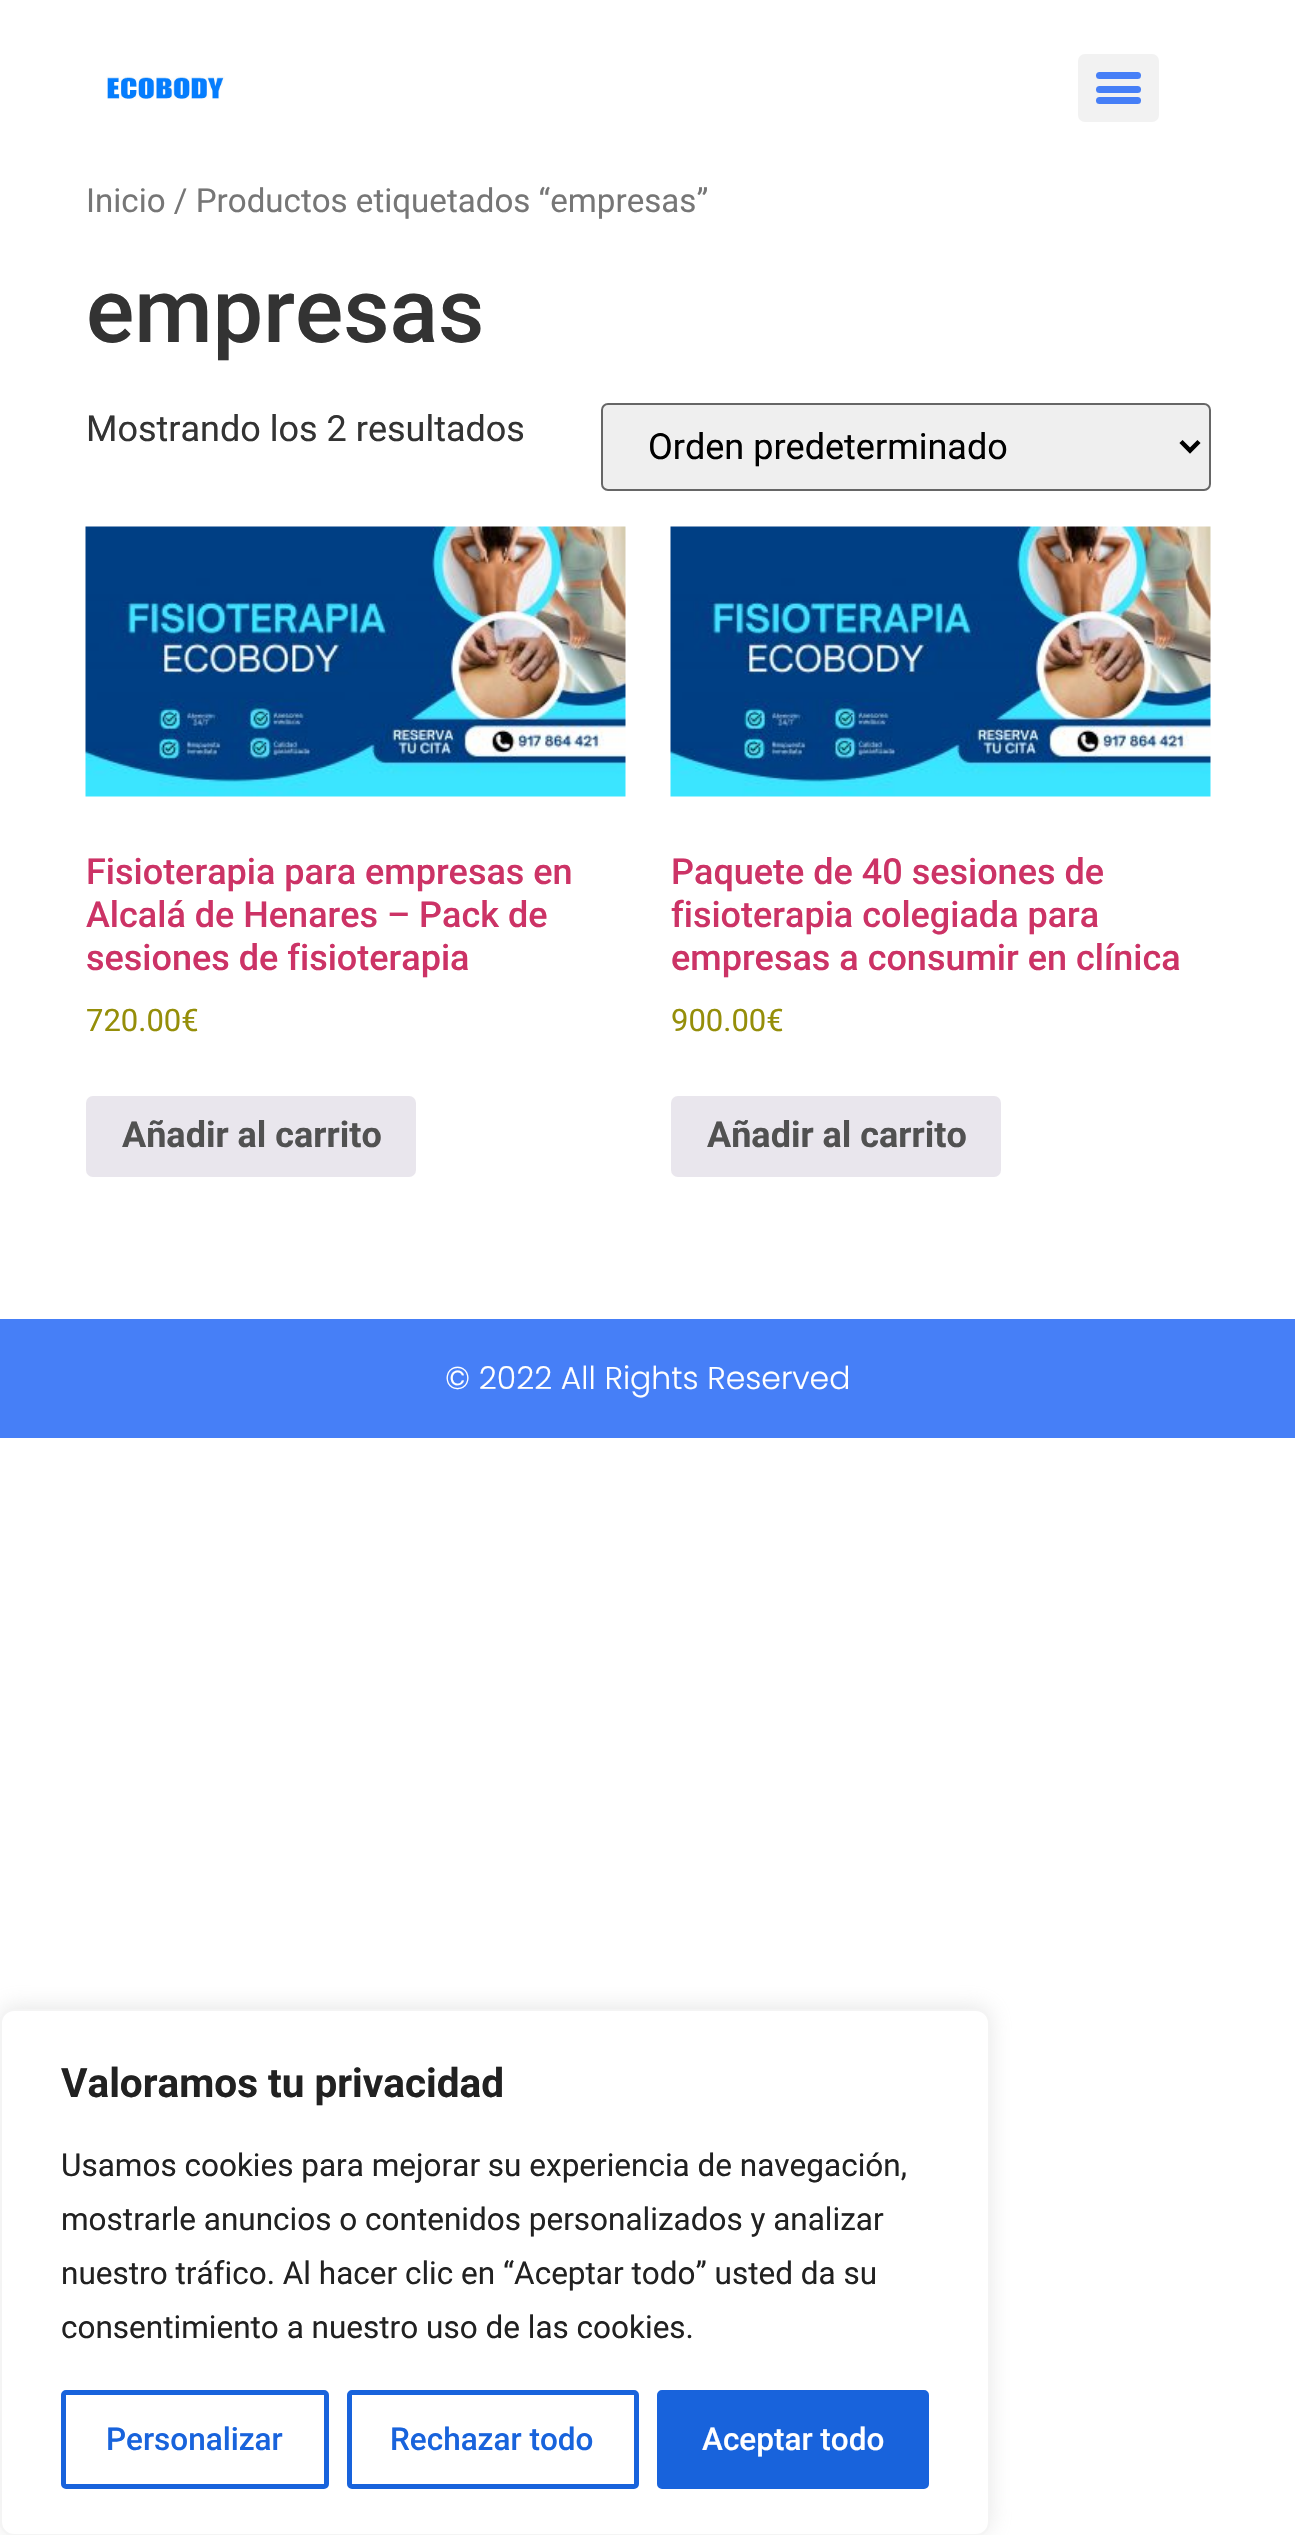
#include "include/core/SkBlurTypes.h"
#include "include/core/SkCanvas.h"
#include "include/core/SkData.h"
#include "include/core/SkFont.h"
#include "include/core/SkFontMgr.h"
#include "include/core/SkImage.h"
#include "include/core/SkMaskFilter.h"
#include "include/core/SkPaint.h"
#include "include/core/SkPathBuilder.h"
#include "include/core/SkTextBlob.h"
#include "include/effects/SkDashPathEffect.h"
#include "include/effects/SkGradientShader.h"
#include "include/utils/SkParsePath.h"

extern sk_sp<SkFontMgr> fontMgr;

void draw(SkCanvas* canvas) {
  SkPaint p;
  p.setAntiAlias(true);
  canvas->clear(SK_ColorWHITE);
  canvas->drawImageRect(SkImages::DeferredFromEncodedData(SkData::MakeFromFileName("images/1.png")), SkRect::MakeLTRB(106, 76, 225, 99), SkSamplingOptions());
  p.setColor(SkColorSetRGB(242, 242, 242));
  canvas->drawRoundRect(SkRect::MakeLTRB(1078, 54, 1159, 122), 7, 7, p);
  p.setColor(SkColorSetRGB(70, 127, 247));
  canvas->drawRoundRect(SkRect::MakeLTRB(1096, 86, 1141, 93), 3.5f, 3.5f, p);
  canvas->drawRoundRect(SkRect::MakeLTRB(1096, 72, 1141, 79), 3.5f, 3.5f, p);
  canvas->drawRoundRect(SkRect::MakeLTRB(1096, 97, 1141, 104), 3.5f, 3.5f, p);
  p.setColor(SkColorSetRGB(239, 239, 239));
  canvas->drawRoundRect(SkRect::MakeLTRB(602, 404, 1210, 490), 6, 6, p);
  p.setStyle(SkPaint::kStroke_Style);
  p.setStrokeWidth(2);
  p.setColor(SkColorSetRGB(102, 102, 102));
  canvas->drawRoundRect(SkRect::MakeLTRB(602, 404, 1210, 490), 6, 6, p);
  p.setStrokeWidth(4.5f);
  p.setColor(SK_ColorBLACK);
  canvas->drawPath(SkPathBuilder().moveTo(1181, 441.5f).lineTo(1190, 450.5f).lineTo(1199, 441.5f).detach(), p);
  canvas->drawImageRect(SkImages::DeferredFromEncodedData(SkData::MakeFromFileName("images/2.png")), SkRect::MakeLTRB(85, 526, 626, 797), SkSamplingOptions());
  p.setStyle(SkPaint::kFill_Style);
  p.setColor(SkColorSetRGB(233, 230, 237));
  canvas->drawRoundRect(SkRect::MakeLTRB(86, 1096, 416, 1177), 7, 7, p);
  canvas->drawImageRect(SkImages::DeferredFromEncodedData(SkData::MakeFromFileName("images/3.png")), SkRect::MakeLTRB(670, 526, 1211, 797), SkSamplingOptions());
  canvas->drawRoundRect(SkRect::MakeLTRB(671, 1096, 1001, 1177), 7, 7, p);
  p.setColor(SkColorSetRGB(70, 127, 247));
  canvas->drawRect(SkRect::MakeLTRB(0, 1319, 1295, 1438), p);
  p.setColor(SkColorSetARGB(77, 172, 171, 171));
  p.setMaskFilter(SkMaskFilter::MakeBlur(kNormal_SkBlurStyle, 11));
  canvas->drawRoundRect(SkRect::MakeLTRB(0, 2007, 990, 2534), 14, 14, p);
  p.setMaskFilter(nullptr);
  p.setColor(SK_ColorWHITE);
  canvas->drawRoundRect(SkRect::MakeLTRB(1, 2010, 989, 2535), 13, 13, p);
  p.setStyle(SkPaint::kStroke_Style);
  p.setStrokeWidth(2);
  p.setColor(SkColorSetRGB(244, 244, 244));
  canvas->drawRoundRect(SkRect::MakeLTRB(1, 2010, 989, 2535), 13, 13, p);
  p.setStrokeWidth(5);
  p.setColor(SkColorSetRGB(24, 99, 220));
  canvas->drawRoundRect(SkRect::MakeLTRB(63.5f, 2392.5f, 326.5f, 2486.5f), 2.5f, 2.5f, p);
  canvas->drawRoundRect(SkRect::MakeLTRB(349.5f, 2392.5f, 636.5f, 2486.5f), 2.5f, 2.5f, p);
  p.setStyle(SkPaint::kFill_Style);
  canvas->drawRoundRect(SkRect::MakeLTRB(659.5f, 2392.5f, 926.5f, 2486.5f), 2.5f, 2.5f, p);
  p.setStyle(SkPaint::kStroke_Style);
  canvas->drawRoundRect(SkRect::MakeLTRB(659.5f, 2392.5f, 926.5f, 2486.5f), 2.5f, 2.5f, p);
  SkFont font1(fontMgr->matchFamilyStyle("Roboto", SkFontStyle::Normal()), 33.1f);
  font1.setSubpixel(true);
  p.setStyle(SkPaint::kFill_Style);
  p.setColor(SkColorSetRGB(118, 118, 118));
  canvas->drawString("Inicio / Productos etiquetados “empresas”", 86, 212, font1, p);
  SkFont font2(fontMgr->matchFamilyStyle("Roboto", SkFontStyle(500, SkFontStyle::kNormal_Width, SkFontStyle::kUpright_Slant)), 90);
  font2.setSubpixel(true);
  p.setColor(SkColorSetRGB(51, 51, 51));
  canvas->drawString("empresas", 86, 342, font2, p);
  SkFont font3(fontMgr->matchFamilyStyle("Roboto", SkFontStyle::Normal()), 36);
  font3.setSubpixel(true);
  canvas->drawString("Mostrando los 2 resultados", 86, 441, font3, p);
  p.setColor(SK_ColorBLACK);
  canvas->drawString("Orden predeterminado", 648, 459, font3, p);
  SkFont font4(fontMgr->matchFamilyStyle("Roboto", SkFontStyle(500, SkFontStyle::kNormal_Width, SkFontStyle::kUpright_Slant)), 36);
  font4.setSubpixel(true);
  p.setColor(SkColorSetRGB(204, 51, 102));
  canvas->drawString("Fisioterapia para empresas en", 86, 884, font4, p);
  canvas->drawString("Alcalá de Henares – Pack de", 86, 927, font4, p);
  canvas->drawString("sesiones de fisioterapia", 86, 970, font4, p);
  SkFont font5(fontMgr->matchFamilyStyle("Roboto", SkFontStyle::Normal()), 31);
  font5.setSubpixel(true);
  p.setColor(SkColorSetRGB(149, 142, 9));
  canvas->drawString("720.00€", 86, 1031, font5, p);
  SkFont font6(fontMgr->matchFamilyStyle("Roboto", SkFontStyle::Bold()), 36);
  font6.setSubpixel(true);
  p.setColor(SkColorSetRGB(81, 81, 81));
  canvas->drawString("Añadir al carrito", 122, 1147, font6, p);
  p.setColor(SkColorSetRGB(204, 51, 102));
  canvas->drawString("Paquete de 40 sesiones de", 671, 884, font4, p);
  canvas->drawString("fisioterapia colegiada para", 671, 927, font4, p);
  canvas->drawString("empresas a consumir en clínica", 671, 970, font4, p);
  p.setColor(SkColorSetRGB(149, 142, 9));
  canvas->drawString("900.00€", 671, 1031, font5, p);
  p.setColor(SkColorSetRGB(81, 81, 81));
  canvas->drawString("Añadir al carrito", 707, 1147, font6, p);
  SkFont font7(fontMgr->matchFamilyStyle("Poppins", SkFontStyle(300, SkFontStyle::kNormal_Width, SkFontStyle::kUpright_Slant)), 31.5f);
  font7.setSubpixel(true);
  p.setColor(SK_ColorWHITE);
  canvas->drawString("© 2022 All Rights Reserved", 445, 1389, font7, p);
  SkFont font8(fontMgr->matchFamilyStyle("Roboto", SkFontStyle::Bold()), 40.5f);
  font8.setSubpixel(true);
  p.setColor(SkColorSetRGB(33, 33, 33));
  canvas->drawString("Valoramos tu privacidad", 61, 2097, font8, p);
  SkFont font9(fontMgr->matchFamilyStyle("Roboto", SkFontStyle::Normal()), 31.5f);
  font9.setSubpixel(true);
  canvas->drawString("Usamos cookies para mejorar su experiencia de navegación,", 61, 2176, font9, p);
  canvas->drawString("mostrarle anuncios o contenidos personalizados y analizar", 61, 2230, font9, p);
  canvas->drawString("nuestro tráfico. Al hacer clic en “Aceptar todo” usted da su", 61, 2284, font9, p);
  canvas->drawString("consentimiento a nuestro uso de las cookies.", 61, 2338, font9, p);
  SkFont font10(fontMgr->matchFamilyStyle("Roboto", SkFontStyle(500, SkFontStyle::kNormal_Width, SkFontStyle::kUpright_Slant)), 31.5f);
  font10.setSubpixel(true);
  p.setColor(SkColorSetRGB(24, 99, 220));
  canvas->drawString("Personalizar", 106, 2450, font10, p);
  canvas->drawString("Rechazar todo", 390, 2450, font10, p);
  p.setColor(SK_ColorWHITE);
  canvas->drawString("Aceptar todo", 702, 2450, font10, p);
}
